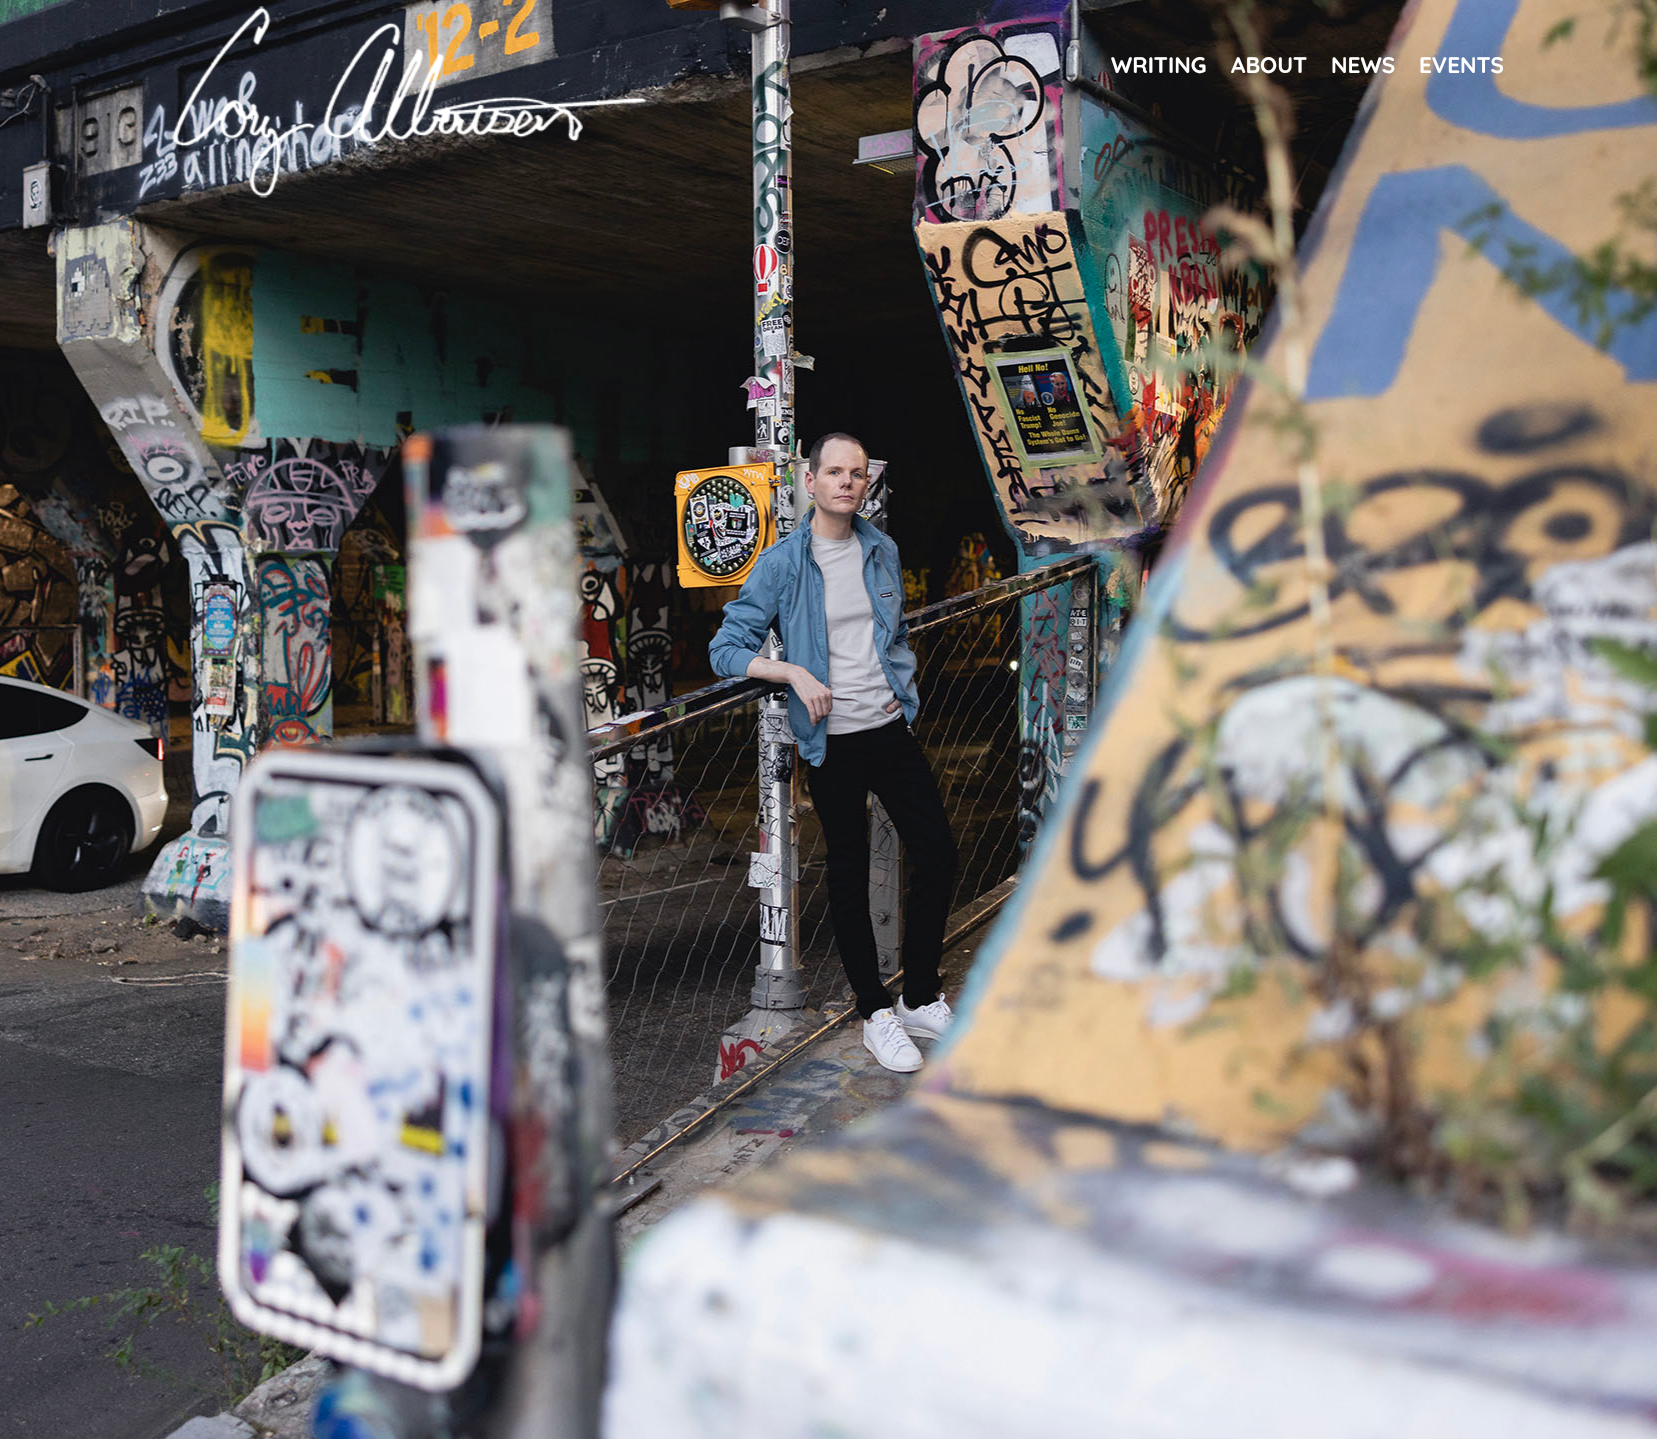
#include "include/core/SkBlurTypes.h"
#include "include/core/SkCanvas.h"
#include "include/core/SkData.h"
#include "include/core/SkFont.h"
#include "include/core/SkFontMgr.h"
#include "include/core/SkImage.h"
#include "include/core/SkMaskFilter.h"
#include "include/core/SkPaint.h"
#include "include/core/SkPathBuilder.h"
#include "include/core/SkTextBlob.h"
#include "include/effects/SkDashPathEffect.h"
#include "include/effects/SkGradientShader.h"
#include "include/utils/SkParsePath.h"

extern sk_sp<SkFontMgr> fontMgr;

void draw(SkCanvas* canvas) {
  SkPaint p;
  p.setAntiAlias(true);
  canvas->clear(SK_ColorWHITE);
  canvas->drawImageRect(SkImages::DeferredFromEncodedData(SkData::MakeFromFileName("images/1.png")), SkRect::MakeLTRB(0, 0, 1657, 1439), SkSamplingOptions());
  canvas->drawImageRect(SkImages::DeferredFromEncodedData(SkData::MakeFromFileName("images/2.png")), SkRect::MakeLTRB(171, 6, 647, 198), SkSamplingOptions());
  SkFont font1(fontMgr->matchFamilyStyle("Quicksand", SkFontStyle::Bold()), 22.5f);
  font1.setSubpixel(true);
  p.setColor(SK_ColorWHITE);
  canvas->drawString("WRITING", 1111, 73, font1, p);
  canvas->drawString("ABOUT", 1231, 73, font1, p);
  canvas->drawString("NEWS", 1331, 73, font1, p);
  canvas->drawString("EVENTS", 1419, 73, font1, p);
}
